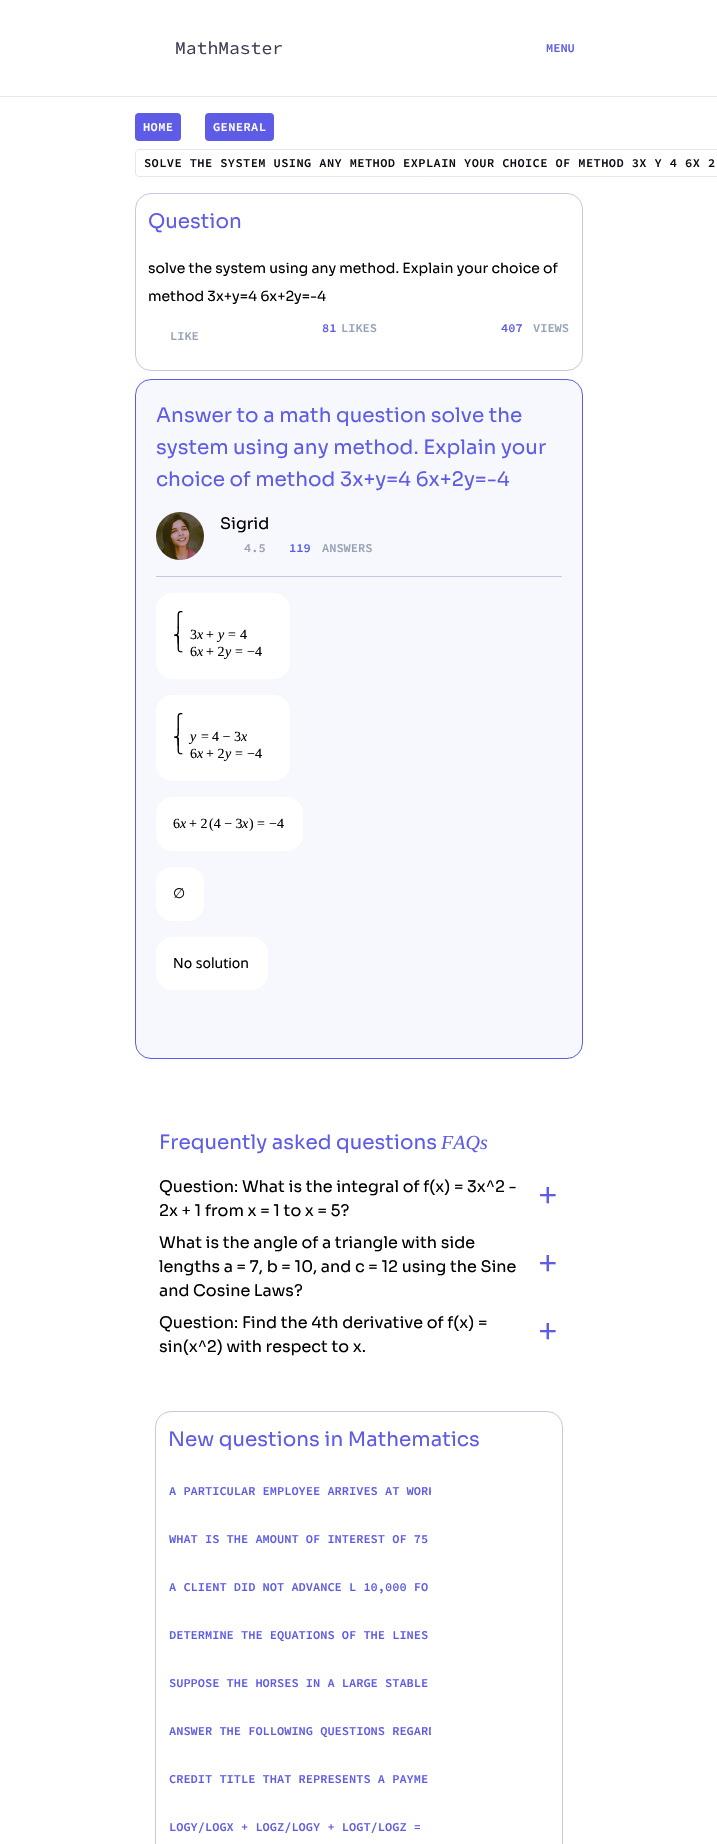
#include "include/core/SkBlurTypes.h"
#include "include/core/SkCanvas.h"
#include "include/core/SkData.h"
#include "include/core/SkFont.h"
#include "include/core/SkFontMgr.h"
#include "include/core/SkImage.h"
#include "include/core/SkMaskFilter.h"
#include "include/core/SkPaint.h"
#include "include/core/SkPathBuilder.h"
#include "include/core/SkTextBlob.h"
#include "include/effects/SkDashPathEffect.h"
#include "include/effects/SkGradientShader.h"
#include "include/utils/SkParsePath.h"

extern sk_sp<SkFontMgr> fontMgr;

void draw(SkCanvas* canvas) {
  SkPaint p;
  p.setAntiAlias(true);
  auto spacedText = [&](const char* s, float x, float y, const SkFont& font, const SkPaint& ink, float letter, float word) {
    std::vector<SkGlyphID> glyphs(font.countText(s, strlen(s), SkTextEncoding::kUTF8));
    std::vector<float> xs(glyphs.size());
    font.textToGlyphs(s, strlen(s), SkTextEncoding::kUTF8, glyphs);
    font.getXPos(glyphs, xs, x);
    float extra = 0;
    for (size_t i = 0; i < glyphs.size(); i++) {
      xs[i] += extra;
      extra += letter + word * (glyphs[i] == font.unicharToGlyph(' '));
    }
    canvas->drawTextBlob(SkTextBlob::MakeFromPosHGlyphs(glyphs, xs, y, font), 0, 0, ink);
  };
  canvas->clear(SK_ColorWHITE);
  p.setColor(SkColorSetRGB(229, 231, 235));
  canvas->drawRect(SkRect::MakeLTRB(0, 96, 717, 97), p);
  p.setColor(SkColorSetRGB(94, 92, 230));
  canvas->drawRoundRect(SkRect::MakeLTRB(135, 113, 181, 141), 4, 4, p);
  canvas->drawRoundRect(SkRect::MakeLTRB(205, 113, 274, 141), 4, 4, p);
  p.setStyle(SkPaint::kStroke_Style);
  p.setStrokeWidth(1);
  p.setColor(SkColorSetRGB(229, 231, 235));
  canvas->drawRoundRect(SkRect::MakeLTRB(135.5f, 149.5f, 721.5f, 176.5f), 3.5f, 3.5f, p);
  p.setColor(SkColorSetRGB(202, 198, 221));
  canvas->drawRoundRect(SkRect::MakeLTRB(135.5f, 193.5f, 582.5f, 370.5f), 15.5f, 15.5f, p);
  p.setStyle(SkPaint::kFill_Style);
  p.setColor(SkColorSetRGB(247, 247, 254));
  canvas->drawRoundRect(SkRect::MakeLTRB(135.5f, 379.5f, 582.5f, 1058.5f), 15.5f, 15.5f, p);
  p.setStyle(SkPaint::kStroke_Style);
  p.setColor(SkColorSetRGB(94, 92, 230));
  canvas->drawRoundRect(SkRect::MakeLTRB(135.5f, 379.5f, 582.5f, 1058.5f), 15.5f, 15.5f, p);
  canvas->drawImageRect(SkImages::DeferredFromEncodedData(SkData::MakeFromFileName("images/1.png")), SkRect::MakeLTRB(156, 512, 204, 560), SkSamplingOptions());
  p.setStyle(SkPaint::kFill_Style);
  p.setColor(SkColorSetRGB(202, 198, 221));
  canvas->drawRect(SkRect::MakeLTRB(156, 576, 562, 577), p);
  p.setColor(SK_ColorWHITE);
  canvas->drawRoundRect(SkRect::MakeLTRB(156, 593, 290, 679), 16, 16, p);
  canvas->drawRoundRect(SkRect::MakeLTRB(156, 695, 290, 781), 16, 16, p);
  canvas->drawRoundRect(SkRect::MakeLTRB(156, 797, 303, 851), 16, 16, p);
  canvas->drawRoundRect(SkRect::MakeLTRB(156, 867, 204, 921), 16, 16, p);
  canvas->drawRoundRect(SkRect::MakeLTRB(156, 937, 268, 990), 16, 16, p);
  p.setStyle(SkPaint::kStroke_Style);
  p.setColor(SkColorSetRGB(202, 198, 221));
  canvas->drawRoundRect(SkRect::MakeLTRB(155.5f, 1411.5f, 562.5f, 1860.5f), 15.5f, 15.5f, p);
  SkFont font1(fontMgr->matchFamilyStyle("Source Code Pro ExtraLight", SkFontStyle::Normal()), 18);
  font1.setSubpixel(true);
  p.setStyle(SkPaint::kFill_Style);
  p.setColor(SkColorSetRGB(63, 58, 82));
  canvas->drawString("MathMaster", 175, 54, font1, p);
  SkFont font2(fontMgr->matchFamilyStyle("Source Code Pro ExtraLight", SkFontStyle(600, SkFontStyle::kNormal_Width, SkFontStyle::kUpright_Slant)), 12);
  font2.setSubpixel(true);
  p.setColor(SkColorSetRGB(94, 92, 230));
  canvas->drawString("MENU", 546, 52, font2, p);
  p.setColor(SK_ColorWHITE);
  spacedText("HOME", 143, 131, font2, p, 0.42f, 0);
  spacedText("GENERAL", 213, 131, font2, p, 0.42f, 0);
  p.setColor(SkColorSetRGB(14, 12, 21));
  spacedText("SOLVE THE SYSTEM USING ANY METHOD EXPLAIN YOUR CHOICE OF METHOD 3X Y 4 6X 2", 144, 167, font2, p, 0.42f, 0);
  SkFont font3(fontMgr->matchFamilyStyle("Sora", SkFontStyle::Normal()), 20);
  font3.setSubpixel(true);
  p.setColor(SkColorSetRGB(94, 92, 230));
  canvas->drawString("Question", 148, 228, font3, p);
  SkFont font4(fontMgr->matchFamilyStyle("Sora", SkFontStyle::Normal()), 14);
  font4.setSubpixel(true);
  p.setColor(SK_ColorBLACK);
  canvas->drawString("solve the system using any method. Explain your choice of", 148, 273, font4, p);
  canvas->drawString("method 3x+y=4 6x+2y=-4", 148, 301, font4, p);
  p.setColor(SkColorSetRGB(94, 92, 230));
  canvas->drawString("81", 322, 332, font2, p);
  p.setColor(SkColorSetRGB(148, 163, 184));
  canvas->drawString("LIKES", 341, 332, font2, p);
  p.setColor(SkColorSetRGB(94, 92, 230));
  canvas->drawString("407", 501, 332, font2, p);
  p.setColor(SkColorSetRGB(148, 163, 184));
  canvas->drawString("VIEWS", 533, 332, font2, p);
  canvas->drawString("LIKE", 170, 340, font2, p);
  p.setColor(SkColorSetRGB(94, 92, 230));
  canvas->drawString("Answer to a math question solve the", 156, 422, font3, p);
  canvas->drawString("system using any method. Explain your", 156, 454, font3, p);
  canvas->drawString("choice of method 3x+y=4 6x+2y=-4", 156, 486, font3, p);
  SkFont font5(fontMgr->matchFamilyStyle("Sora", SkFontStyle::Normal()), 16);
  font5.setSubpixel(true);
  p.setColor(SK_ColorBLACK);
  canvas->drawString("Sigrid", 220, 529, font5, p);
  p.setColor(SkColorSetRGB(148, 163, 184));
  canvas->drawString("4.5", 244, 552, font2, p);
  p.setColor(SkColorSetRGB(94, 92, 230));
  canvas->drawString("119", 289, 552, font2, p);
  p.setColor(SkColorSetRGB(148, 163, 184));
  canvas->drawString("ANSWERS", 322, 552, font2, p);
  SkFont font6(fontMgr->matchFamilyStyle("DejaVu Sans", SkFontStyle::Normal()), 14);
  font6.setSubpixel(true);
  p.setColor(SK_ColorBLACK);
  canvas->drawString("⎧", 173, 624, font6, p);
  canvas->drawString("⎩", 173, 649, font6, p);
  canvas->drawString("⎨", 173, 640, font6, p);
  SkFont font7(fontMgr->matchFamilyStyle("Liberation Serif", SkFontStyle::Normal()), 14);
  font7.setSubpixel(true);
  canvas->drawString("3", 190, 639, font7, p);
  SkFont font8(fontMgr->matchFamilyStyle("Liberation Serif", SkFontStyle::Italic()), 14);
  font8.setSubpixel(true);
  canvas->drawString("x", 197, 639, font8, p);
  canvas->drawString("+", 206, 639, font7, p);
  canvas->drawString("y", 218, 639, font8, p);
  canvas->drawString("=", 228, 639, font7, p);
  canvas->drawString("4", 240, 639, font7, p);
  canvas->drawString("6", 190, 656, font7, p);
  canvas->drawString("x", 197, 656, font8, p);
  canvas->drawString("+ 2", 206, 656, font7, p);
  canvas->drawString("y", 225, 656, font8, p);
  canvas->drawString("=", 235, 656, font7, p);
  canvas->drawString("−4", 247, 656, font7, p);
  canvas->drawString("⎧", 173, 726, font6, p);
  canvas->drawString("⎩", 173, 751, font6, p);
  canvas->drawString("⎨", 173, 742, font6, p);
  canvas->drawString("y", 190, 741, font8, p);
  canvas->drawString("=", 201, 741, font7, p);
  canvas->drawString("4 − 3", 212, 741, font7, p);
  canvas->drawString("x", 241, 741, font8, p);
  canvas->drawString("6", 190, 758, font7, p);
  canvas->drawString("x", 197, 758, font8, p);
  canvas->drawString("+ 2", 206, 758, font7, p);
  canvas->drawString("y", 225, 758, font8, p);
  canvas->drawString("=", 235, 758, font7, p);
  canvas->drawString("−4", 247, 758, font7, p);
  canvas->drawString("6", 173, 828, font7, p);
  canvas->drawString("x", 180, 828, font8, p);
  canvas->drawString("+ 2", 189, 828, font7, p);
  canvas->drawString("(4 − 3", 209, 828, font7, p);
  canvas->drawString("x", 242, 828, font8, p);
  canvas->drawString(")", 249, 828, font7, p);
  canvas->drawString("=", 257, 828, font7, p);
  canvas->drawString("−4", 269, 828, font7, p);
  canvas->drawString("∅", 173, 898, font6, p);
  SkFont font9(fontMgr->matchFamilyStyle("Noto Sans", SkFontStyle::Normal()), 14);
  font9.setSubpixel(true);
  canvas->drawString("No solution", 173, 968, font9, p);
  p.setColor(SkColorSetRGB(94, 92, 230));
  canvas->drawString("Frequently asked questions", 159, 1149, font3, p);
  SkFont font10(fontMgr->matchFamilyStyle("Liberation Serif", SkFontStyle::Italic()), 20);
  font10.setSubpixel(true);
  canvas->drawString("FAQs", 441, 1149, font10, p);
  p.setColor(SK_ColorBLACK);
  canvas->drawString("Question: What is the integral of f(x) = 3x^2 -", 159, 1192, font5, p);
  canvas->drawString("2x + 1 from x = 1 to x = 5?", 159, 1216, font5, p);
  SkFont font11(fontMgr->matchFamilyStyle("Source Code Pro ExtraLight", SkFontStyle::Normal()), 36);
  font11.setSubpixel(true);
  p.setColor(SkColorSetRGB(94, 92, 230));
  canvas->drawString("+", 537, 1207, font11, p);
  p.setColor(SK_ColorBLACK);
  canvas->drawString("What is the angle of a triangle with side", 159, 1248, font5, p);
  canvas->drawString("lengths a = 7, b = 10, and c = 12 using the Sine", 159, 1272, font5, p);
  canvas->drawString("and Cosine Laws?", 159, 1296, font5, p);
  p.setColor(SkColorSetRGB(94, 92, 230));
  canvas->drawString("+", 537, 1275, font11, p);
  p.setColor(SK_ColorBLACK);
  canvas->drawString("Question: Find the 4th derivative of f(x) =", 159, 1328, font5, p);
  canvas->drawString("sin(x^2) with respect to x.", 159, 1352, font5, p);
  p.setColor(SkColorSetRGB(94, 92, 230));
  canvas->drawString("+", 537, 1343, font11, p);
  canvas->drawString("New questions in Mathematics", 168, 1446, font3, p);
  canvas->save();
  canvas->clipRect(SkRect::MakeLTRB(169, 1481, 431, 1511));
  canvas->drawString("A PARTICULAR EMPLOYEE ARRIVES AT WORK", 169, 1495, font2, p);
  canvas->restore();
  canvas->save();
  canvas->clipRect(SkRect::MakeLTRB(169, 1529, 431, 1559));
  canvas->drawString("WHAT IS THE AMOUNT OF INTEREST OF 75", 169, 1543, font2, p);
  canvas->restore();
  canvas->drawString("A CLIENT DID NOT ADVANCE L 10,000 FO", 169, 1591, font2, p);
  canvas->drawString("DETERMINE THE EQUATIONS OF THE LINES", 169, 1639, font2, p);
  canvas->drawString("SUPPOSE THE HORSES IN A LARGE STABLE", 169, 1687, font2, p);
  canvas->save();
  canvas->clipRect(SkRect::MakeLTRB(169, 1721, 431, 1751));
  canvas->drawString("ANSWER THE FOLLOWING QUESTIONS REGARD", 169, 1735, font2, p);
  canvas->restore();
  canvas->drawString("CREDIT TITLE THAT REPRESENTS A PAYME", 169, 1783, font2, p);
  canvas->drawString("LOGY/LOGX + LOGZ/LOGY + LOGT/LOGZ =", 169, 1831, font2, p);
}
